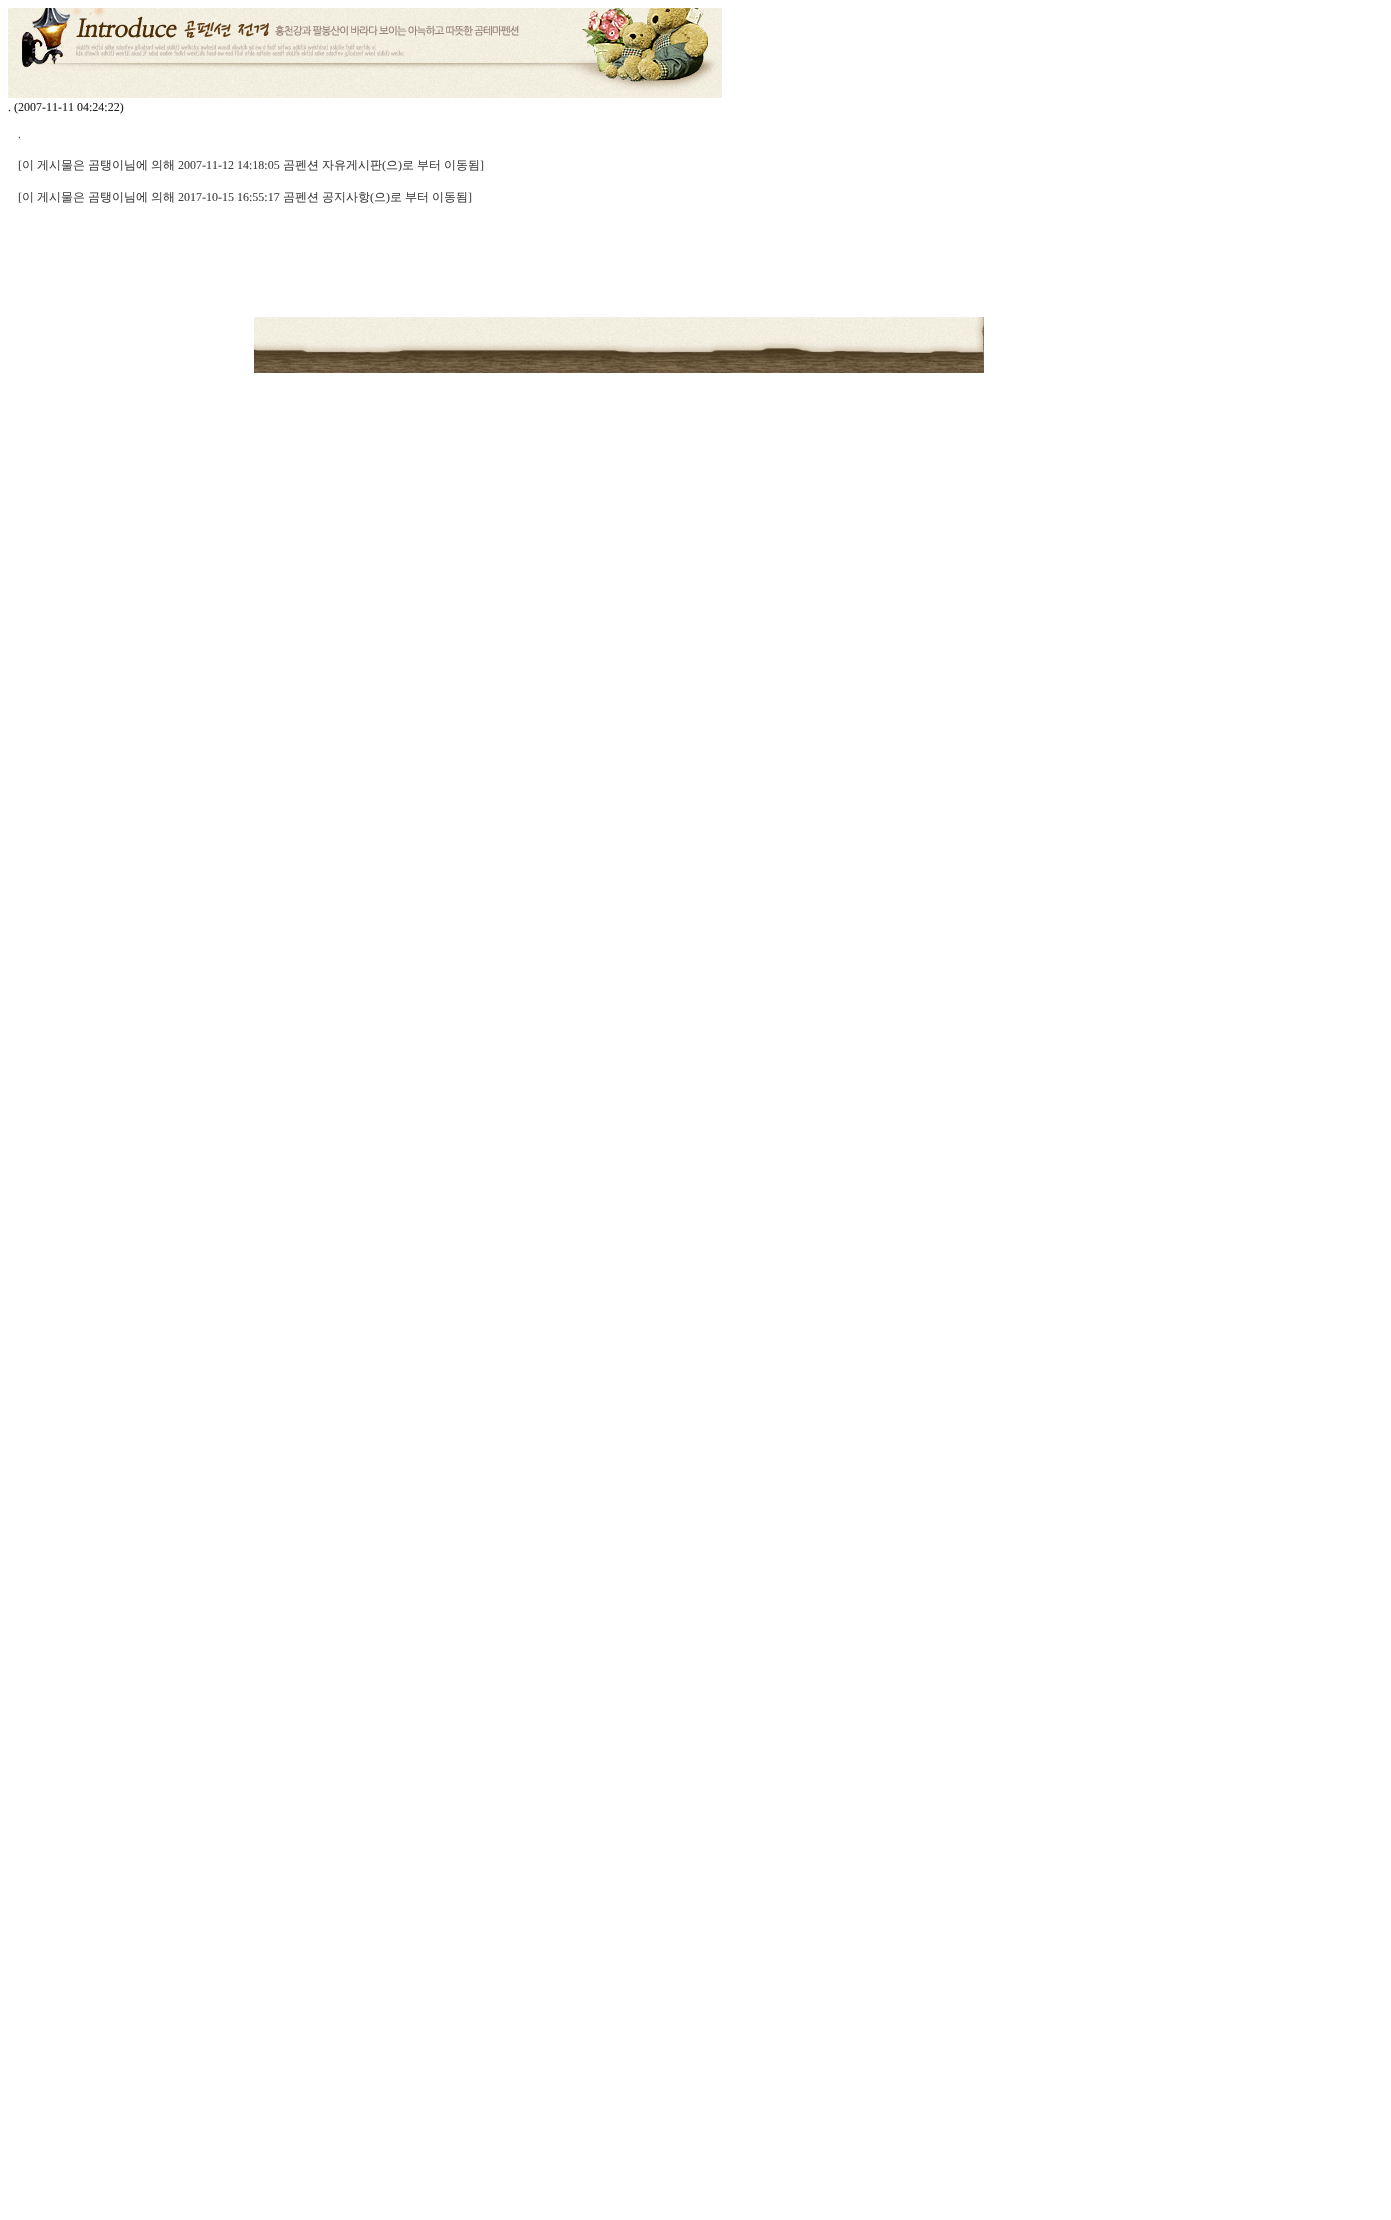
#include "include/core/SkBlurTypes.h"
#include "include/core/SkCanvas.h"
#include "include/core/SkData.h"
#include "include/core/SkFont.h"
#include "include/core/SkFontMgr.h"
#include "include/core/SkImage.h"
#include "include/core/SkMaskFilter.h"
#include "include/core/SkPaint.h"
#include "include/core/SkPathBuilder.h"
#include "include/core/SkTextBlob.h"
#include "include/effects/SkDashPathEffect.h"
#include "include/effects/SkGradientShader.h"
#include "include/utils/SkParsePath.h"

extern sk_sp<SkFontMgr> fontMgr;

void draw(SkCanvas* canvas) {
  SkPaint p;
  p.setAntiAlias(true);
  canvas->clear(SK_ColorWHITE);
  canvas->drawImageRect(SkImages::DeferredFromEncodedData(SkData::MakeFromFileName("images/1.png")), SkRect::MakeLTRB(8, 8, 722, 98), SkSamplingOptions());
  canvas->drawImageRect(SkImages::DeferredFromEncodedData(SkData::MakeFromFileName("images/2.png")), SkRect::MakeLTRB(254, 317, 984, 373), SkSamplingOptions());
  SkFont font1(fontMgr->matchFamilyStyle("Liberation Serif", SkFontStyle::Normal()), 12);
  font1.setSubpixel(true);
  p.setColor(SkColorSetRGB(34, 34, 34));
  canvas->drawString(". (2007-11-11 04:24:22)", 8, 111, font1, p);
  p.setColor(SkColorSetRGB(64, 64, 64));
  canvas->drawString(".", 18, 138, font1, p);
  canvas->drawString("[", 18, 169, font1, p);
  SkFont font2(fontMgr->matchFamilyStyle("WenQuanYi Zen Hei", SkFontStyle(500, SkFontStyle::kNormal_Width, SkFontStyle::kUpright_Slant)), 12);
  font2.setSubpixel(true);
  canvas->drawString("이", 22, 169, font2, p);
  canvas->drawString("게시물은", 37, 169, font2, p);
  canvas->drawString("곰탱이님에", 88, 169, font2, p);
  canvas->drawString("의해", 151, 169, font2, p);
  canvas->drawString("2007-11-12 14:18:05", 178, 169, font1, p);
  canvas->drawString("곰펜션", 283, 169, font2, p);
  canvas->drawString("자유게시판", 322, 169, font2, p);
  canvas->drawString("(", 382, 169, font1, p);
  canvas->drawString("으", 386, 169, font2, p);
  canvas->drawString(")", 398, 169, font1, p);
  canvas->drawString("로", 402, 169, font2, p);
  canvas->drawString("부터", 417, 169, font2, p);
  canvas->drawString("이동됨", 444, 169, font2, p);
  canvas->drawString("]", 480, 169, font1, p);
  canvas->drawString("[", 18, 201, font1, p);
  canvas->drawString("이", 22, 201, font2, p);
  canvas->drawString("게시물은", 37, 201, font2, p);
  canvas->drawString("곰탱이님에", 88, 201, font2, p);
  canvas->drawString("의해", 151, 201, font2, p);
  canvas->drawString("2017-10-15 16:55:17", 178, 201, font1, p);
  canvas->drawString("곰펜션", 283, 201, font2, p);
  canvas->drawString("공지사항", 322, 201, font2, p);
  canvas->drawString("(", 370, 201, font1, p);
  canvas->drawString("으", 374, 201, font2, p);
  canvas->drawString(")", 386, 201, font1, p);
  canvas->drawString("로", 390, 201, font2, p);
  canvas->drawString("부터", 405, 201, font2, p);
  canvas->drawString("이동됨", 432, 201, font2, p);
  canvas->drawString("]", 468, 201, font1, p);
}
